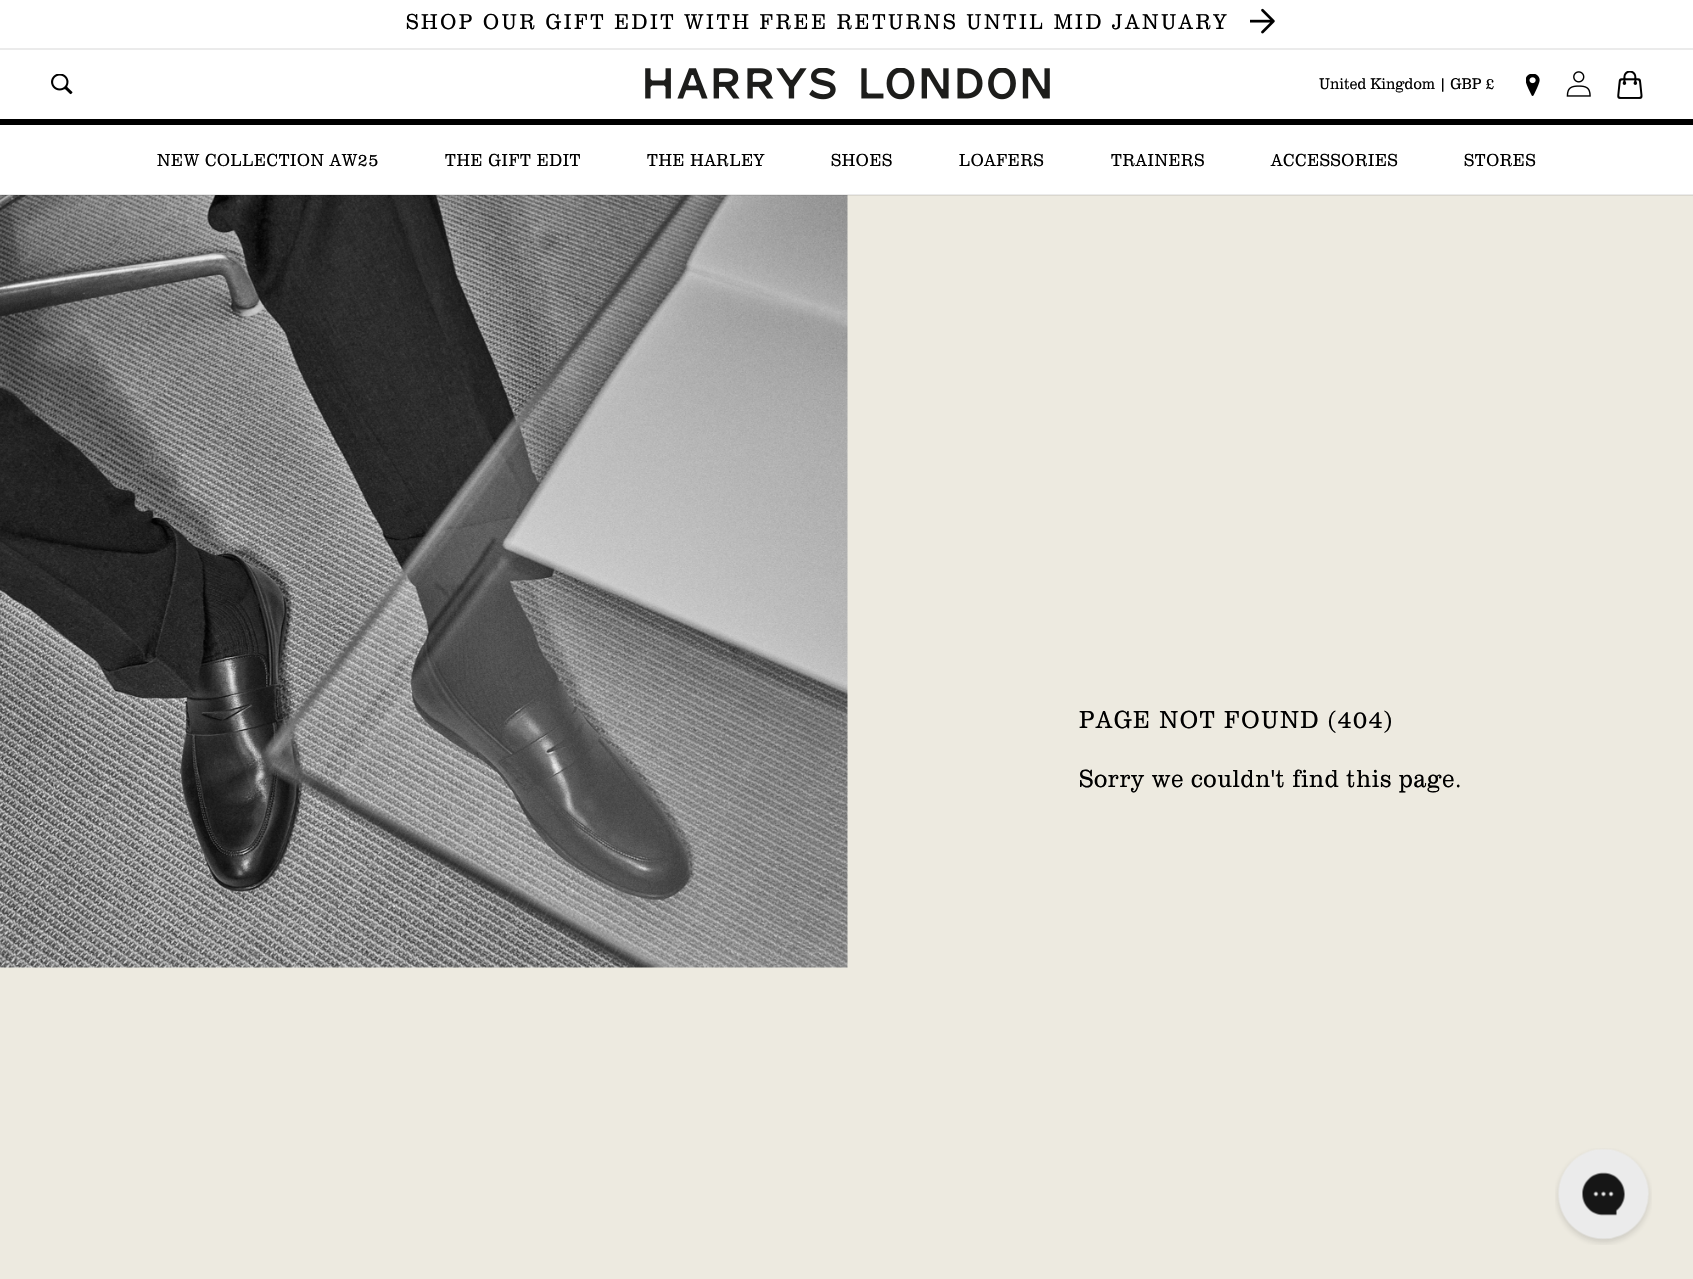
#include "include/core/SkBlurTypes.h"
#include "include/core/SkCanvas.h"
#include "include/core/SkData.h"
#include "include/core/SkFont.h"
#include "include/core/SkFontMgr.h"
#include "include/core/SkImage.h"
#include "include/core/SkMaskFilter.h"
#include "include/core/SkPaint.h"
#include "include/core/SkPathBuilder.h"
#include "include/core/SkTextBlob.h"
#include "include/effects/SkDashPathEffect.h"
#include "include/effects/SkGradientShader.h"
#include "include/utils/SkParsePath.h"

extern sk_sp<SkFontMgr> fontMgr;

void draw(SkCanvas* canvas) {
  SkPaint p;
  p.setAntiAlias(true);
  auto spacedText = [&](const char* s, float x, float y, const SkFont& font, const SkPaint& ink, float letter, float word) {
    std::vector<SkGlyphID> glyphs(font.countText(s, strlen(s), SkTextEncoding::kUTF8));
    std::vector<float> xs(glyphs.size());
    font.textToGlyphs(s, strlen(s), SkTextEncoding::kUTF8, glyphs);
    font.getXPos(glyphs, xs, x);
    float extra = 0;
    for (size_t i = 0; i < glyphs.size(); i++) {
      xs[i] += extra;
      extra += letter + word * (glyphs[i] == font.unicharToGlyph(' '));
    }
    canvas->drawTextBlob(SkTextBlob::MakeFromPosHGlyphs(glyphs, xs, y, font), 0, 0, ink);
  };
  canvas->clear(SK_ColorWHITE);
  p.setColor(SkColorSetRGB(235, 235, 235));
  canvas->drawRect(SkRect::MakeLTRB(0, 48, 1693, 50), p);
  canvas->drawImageRect(SkImages::DeferredFromEncodedData(SkData::MakeFromFileName("images/1.png")), SkRect::MakeLTRB(1250, 8, 1275, 34), SkSamplingOptions());
  p.setColor(SkColorSetRGB(237, 234, 224));
  canvas->drawRect(SkRect::MakeLTRB(0, 195, 1693, 1279), p);
  canvas->drawImageRect(SkImages::DeferredFromEncodedData(SkData::MakeFromFileName("images/7.png")), SkRect::MakeLTRB(0, 195, 848, 968), SkSamplingOptions());
  p.setColor(SkColorSetARGB(20, 0, 0, 0));
  canvas->drawRect(SkRect::MakeLTRB(0, 194, 1693, 196), p);
  canvas->drawImageRect(SkImages::DeferredFromEncodedData(SkData::MakeFromFileName("images/2.png")), SkRect::MakeLTRB(51, 74, 73, 95), SkSamplingOptions());
  canvas->drawImageRect(SkImages::DeferredFromEncodedData(SkData::MakeFromFileName("images/3.png")), SkRect::MakeLTRB(645, 68, 1050, 100), SkSamplingOptions());
  canvas->drawImageRect(SkImages::DeferredFromEncodedData(SkData::MakeFromFileName("images/4.png")), SkRect::MakeLTRB(1526, 74, 1540, 96), SkSamplingOptions());
  canvas->drawImageRect(SkImages::DeferredFromEncodedData(SkData::MakeFromFileName("images/5.png")), SkRect::MakeLTRB(1566, 71, 1591, 97), SkSamplingOptions());
  canvas->drawImageRect(SkImages::DeferredFromEncodedData(SkData::MakeFromFileName("images/6.png")), SkRect::MakeLTRB(1617, 71, 1643, 99), SkSamplingOptions());
  p.setColor(SK_ColorBLACK);
  canvas->drawRect(SkRect::MakeLTRB(0, 119, 1693, 125), p);
  canvas->drawImageRect(SkImages::DeferredFromEncodedData(SkData::MakeFromFileName("images/8.png")), SkRect::MakeLTRB(1555, 1148, 1652, 1245), SkSamplingOptions());
  SkFont font1(fontMgr->matchFamilyStyle("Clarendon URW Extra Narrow", SkFontStyle(300, SkFontStyle::kNormal_Width, SkFontStyle::kUpright_Slant)), 22.3f);
  font1.setSubpixel(true);
  spacedText("SHOP OUR GIFT EDIT WITH FREE RETURNS UNTIL MID JANUARY", 406, 29, font1, p, 2.55f, 0);
  SkFont font2(fontMgr->matchFamilyStyle("Clarendon URW Extra Narrow", SkFontStyle(300, SkFontStyle::kNormal_Width, SkFontStyle::kUpright_Slant)), 16);
  font2.setSubpixel(true);
  canvas->drawString("United Kingdom | GBP £", 1319, 89, font2, p);
  SkFont font3(fontMgr->matchFamilyStyle("Clarendon URW Extra Narrow", SkFontStyle(300, SkFontStyle::kNormal_Width, SkFontStyle::kUpright_Slant)), 18);
  font3.setSubpixel(true);
  spacedText("NEW COLLECTION AW25", 157, 166, font3, p, 0.65f, 0);
  spacedText("THE GIFT EDIT", 445, 166, font3, p, 0.65f, 0);
  spacedText("THE HARLEY", 647, 166, font3, p, 0.65f, 0);
  spacedText("SHOES", 831, 166, font3, p, 0.65f, 0);
  spacedText("LOAFERS", 959, 166, font3, p, 0.65f, 0);
  spacedText("TRAINERS", 1111, 166, font3, p, 0.65f, 0);
  spacedText("ACCESSORIES", 1271, 166, font3, p, 0.65f, 0);
  spacedText("STORES", 1464, 166, font3, p, 0.65f, 0);
  SkFont font4(fontMgr->matchFamilyStyle("Clarendon URW Extra Narrow", SkFontStyle(300, SkFontStyle::kNormal_Width, SkFontStyle::kUpright_Slant)), 25.5f);
  font4.setSubpixel(true);
  spacedText("PAGE NOT FOUND (404)", 1079, 728, font4, p, 1.5f, 0);
  spacedText("Sorry we couldn't find this page.", 1079, 787, font4, p, 0.65f, 0);
}
